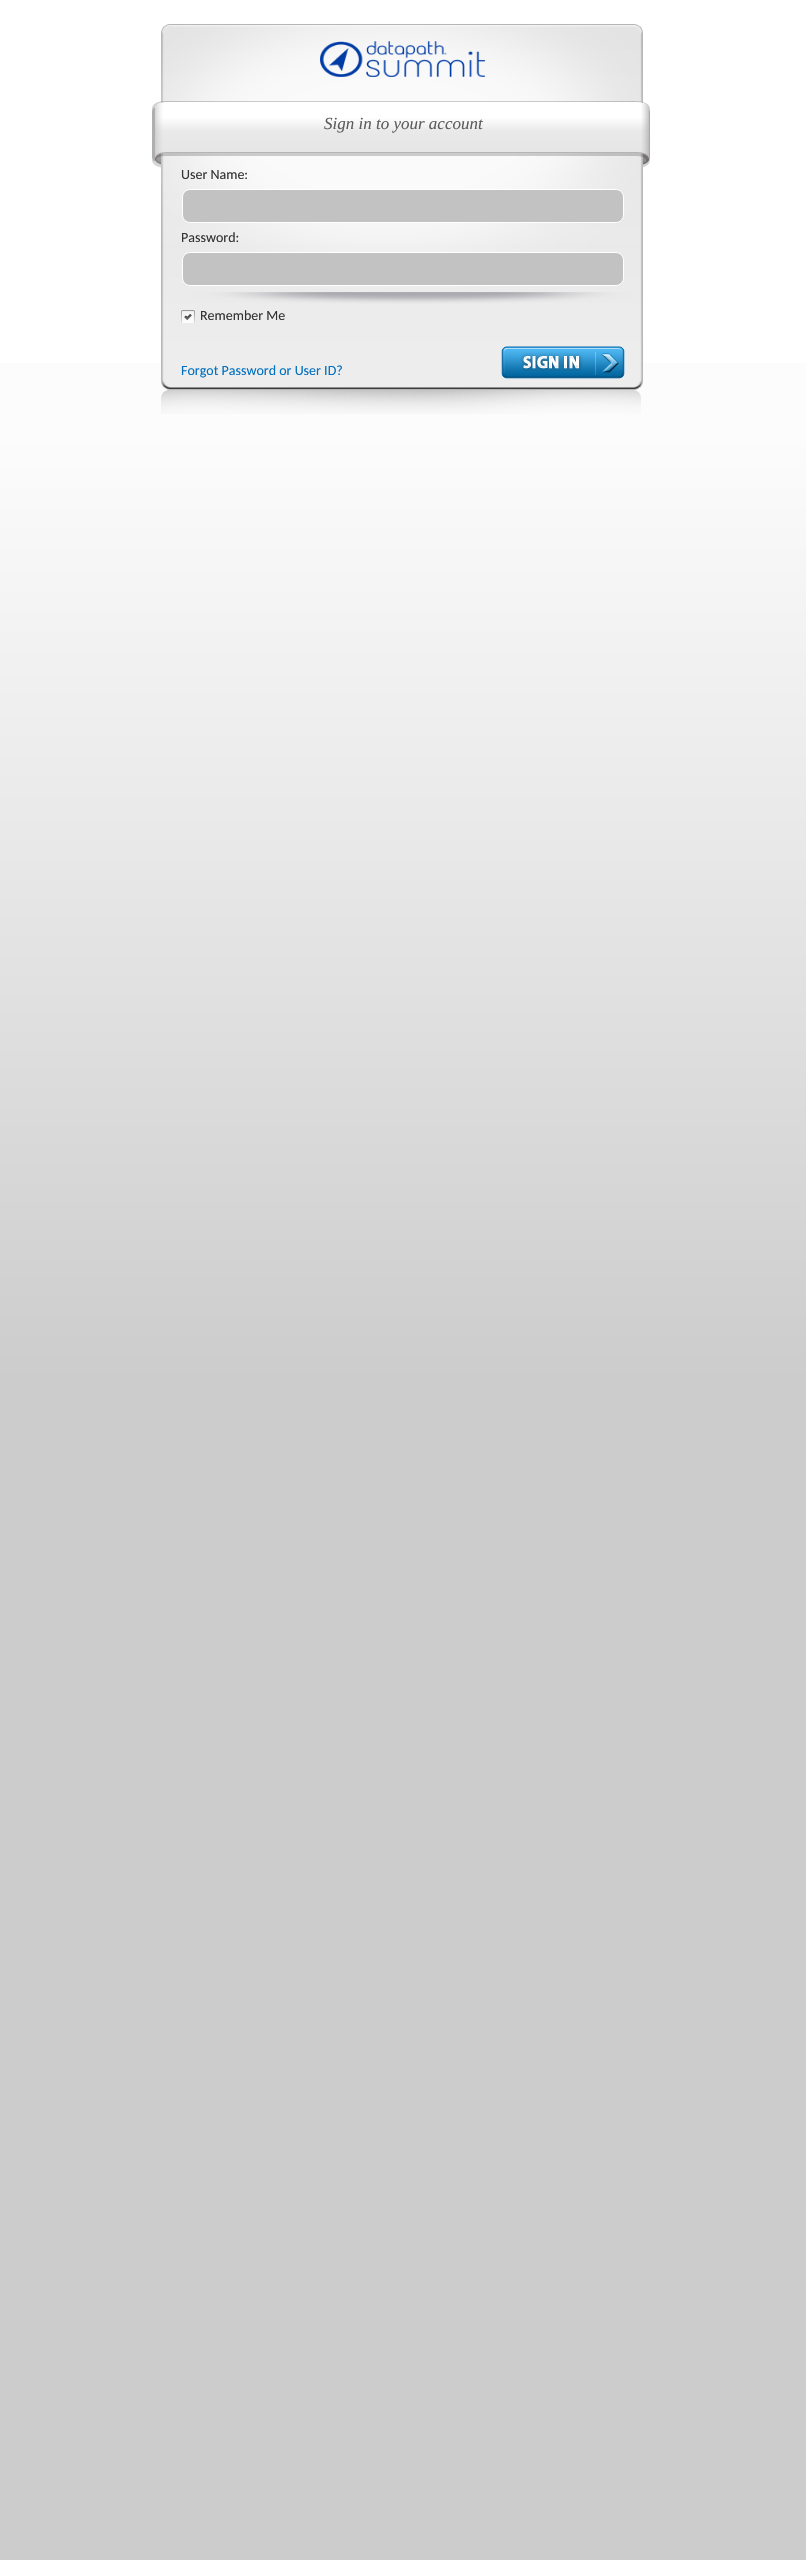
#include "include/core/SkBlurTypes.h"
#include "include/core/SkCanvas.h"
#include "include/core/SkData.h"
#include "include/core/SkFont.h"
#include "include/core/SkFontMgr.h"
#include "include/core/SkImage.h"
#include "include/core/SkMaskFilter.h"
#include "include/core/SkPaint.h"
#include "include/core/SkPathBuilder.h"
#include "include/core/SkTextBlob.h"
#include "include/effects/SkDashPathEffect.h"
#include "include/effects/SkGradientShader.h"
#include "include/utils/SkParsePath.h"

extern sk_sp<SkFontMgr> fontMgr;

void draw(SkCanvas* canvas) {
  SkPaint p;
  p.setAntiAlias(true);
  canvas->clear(SK_ColorWHITE);
  {
    const SkColor colors[] = {SK_ColorWHITE, SkColorSetRGB(252, 252, 252), SkColorSetRGB(231, 231, 231), SkColorSetRGB(204, 204, 204), SkColorSetRGB(204, 204, 204)};
    const float stops[] = {0, 0.17f, 0.34f, 0.54f, 1};
    const SkPoint ends[] = {{403, 0}, {403, 2560}};
    p.setShader(SkGradientShader::MakeLinear(ends, colors, stops, 5, SkTileMode::kClamp));
    p.setAlpha(255);
  }
  canvas->drawRect(SkRect::MakeLTRB(0, 363, 806, 2560), p);
  canvas->drawImageRect(SkImages::DeferredFromEncodedData(SkData::MakeFromFileName("images/1.png")), SkRect::MakeLTRB(152, 24, 650, 414), SkSamplingOptions());
  canvas->drawImageRect(SkImages::DeferredFromEncodedData(SkData::MakeFromFileName("images/2.png")), SkRect::MakeLTRB(320, 41, 486, 77), SkSamplingOptions());
  p.setShader(nullptr);
  p.setColor(SkColorSetRGB(194, 194, 194));
  canvas->drawRoundRect(SkRect::MakeLTRB(182.5f, 189.5f, 623.5f, 222.5f), 7.5f, 7.5f, p);
  p.setStyle(SkPaint::kStroke_Style);
  p.setStrokeWidth(1);
  p.setColor(SK_ColorWHITE);
  canvas->drawRoundRect(SkRect::MakeLTRB(182.5f, 189.5f, 623.5f, 222.5f), 7.5f, 7.5f, p);
  p.setStyle(SkPaint::kFill_Style);
  p.setColor(SkColorSetRGB(194, 194, 194));
  canvas->drawRoundRect(SkRect::MakeLTRB(182.5f, 252.5f, 623.5f, 285.5f), 7.5f, 7.5f, p);
  p.setStyle(SkPaint::kStroke_Style);
  p.setColor(SK_ColorWHITE);
  canvas->drawRoundRect(SkRect::MakeLTRB(182.5f, 252.5f, 623.5f, 285.5f), 7.5f, 7.5f, p);
  canvas->drawImageRect(SkImages::DeferredFromEncodedData(SkData::MakeFromFileName("images/3.png")), SkRect::MakeLTRB(181, 310, 195, 323), SkSamplingOptions());
  canvas->drawImageRect(SkImages::DeferredFromEncodedData(SkData::MakeFromFileName("images/4.png")), SkRect::MakeLTRB(501, 346, 625, 379), SkSamplingOptions());
  SkFont font1(fontMgr->matchFamilyStyle("Liberation Serif", SkFontStyle::Italic()), 17);
  font1.setSubpixel(true);
  p.setStyle(SkPaint::kFill_Style);
  p.setColor(SkColorSetRGB(92, 92, 92));
  canvas->drawString("Sign in to your account", 324, 129, font1, p);
  SkFont font2(fontMgr->matchFamilyStyle("Carlito", SkFontStyle::Normal()), 14);
  font2.setSubpixel(true);
  p.setColor(SkColorSetRGB(51, 51, 51));
  canvas->drawString("User Name:", 181, 179, font2, p);
  canvas->drawString("Password:", 181, 242, font2, p);
  canvas->drawString("Remember Me", 200, 320, font2, p);
  p.setColor(SkColorSetRGB(0, 112, 192));
  canvas->drawString("Forgot Password or User ID?", 181, 375, font2, p);
}
